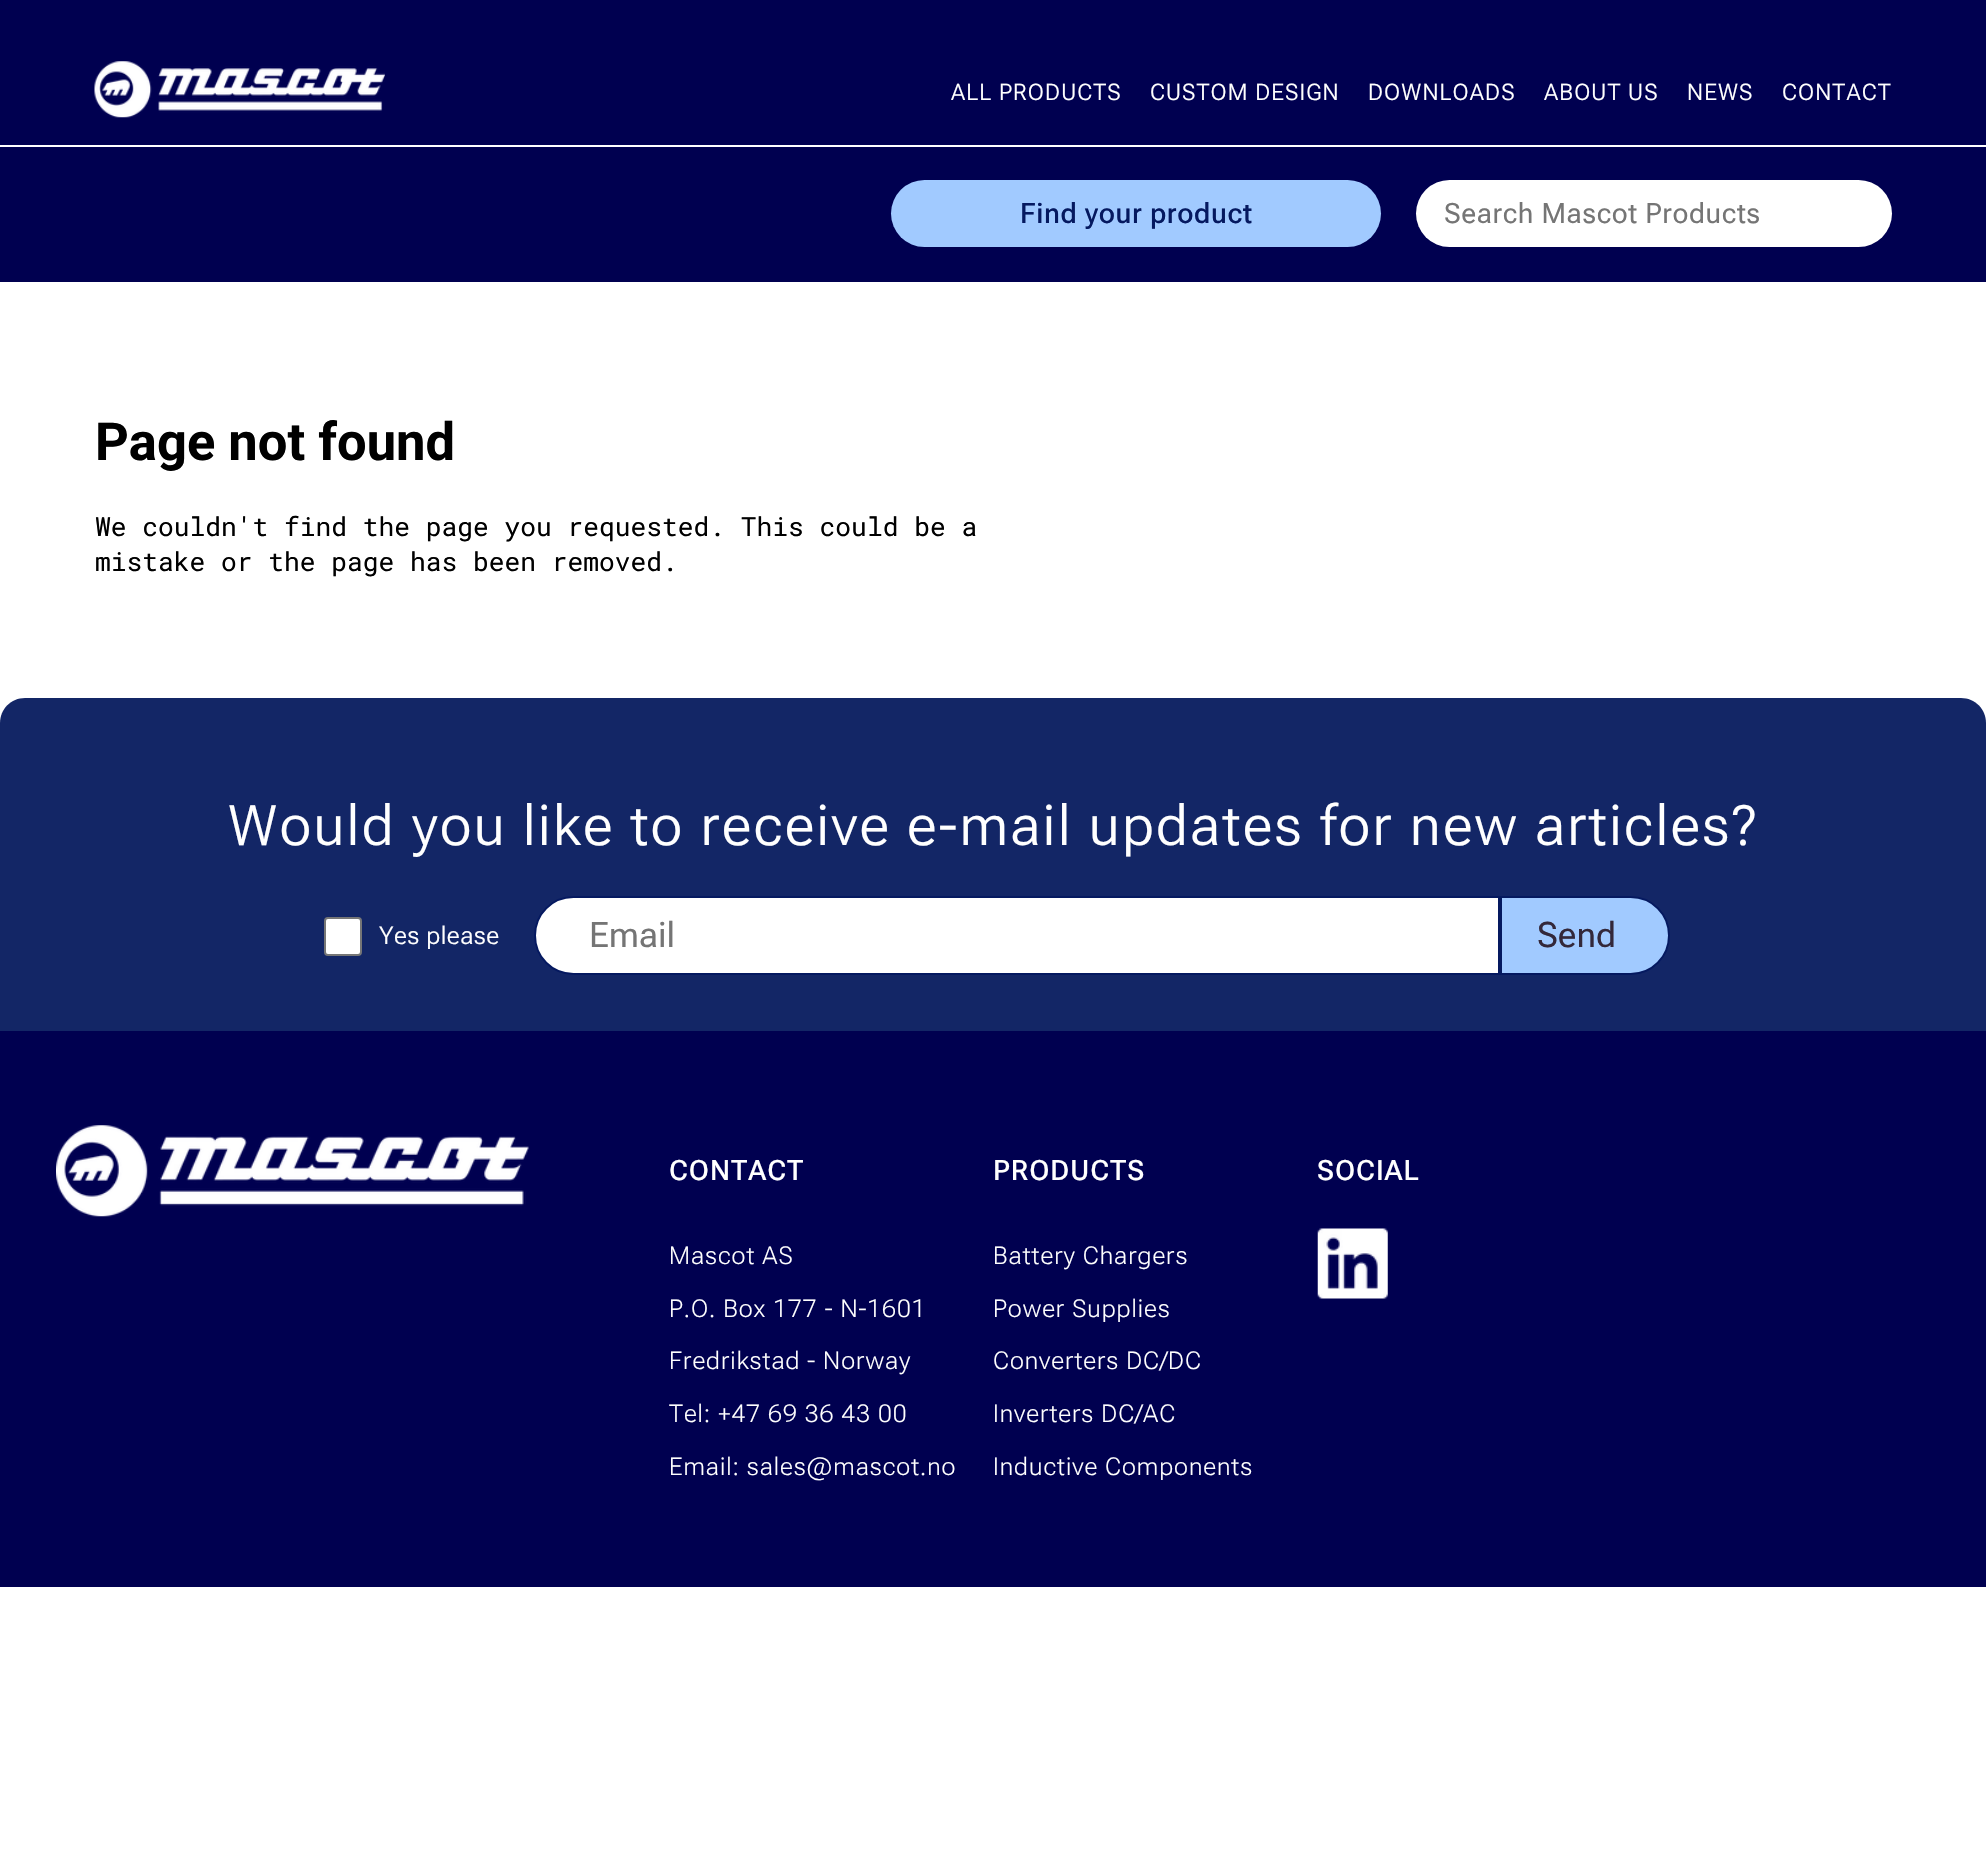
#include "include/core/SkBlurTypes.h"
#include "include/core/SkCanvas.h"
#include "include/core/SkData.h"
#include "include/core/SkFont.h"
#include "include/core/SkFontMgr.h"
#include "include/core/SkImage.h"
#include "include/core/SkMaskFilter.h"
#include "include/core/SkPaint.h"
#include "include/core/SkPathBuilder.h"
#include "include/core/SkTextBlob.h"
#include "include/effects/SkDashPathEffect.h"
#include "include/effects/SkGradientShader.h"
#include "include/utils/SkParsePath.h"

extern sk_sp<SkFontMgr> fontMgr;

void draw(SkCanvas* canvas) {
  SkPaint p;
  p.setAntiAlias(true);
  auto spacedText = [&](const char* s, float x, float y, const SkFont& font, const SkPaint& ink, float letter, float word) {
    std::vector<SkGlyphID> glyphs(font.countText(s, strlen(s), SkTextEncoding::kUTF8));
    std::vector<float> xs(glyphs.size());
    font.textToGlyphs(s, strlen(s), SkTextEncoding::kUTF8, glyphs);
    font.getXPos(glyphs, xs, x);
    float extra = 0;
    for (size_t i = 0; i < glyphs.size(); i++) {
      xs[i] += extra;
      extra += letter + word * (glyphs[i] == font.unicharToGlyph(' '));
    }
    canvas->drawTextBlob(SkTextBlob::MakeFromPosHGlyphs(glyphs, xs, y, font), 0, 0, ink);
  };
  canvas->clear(SK_ColorWHITE);
  p.setColor(SkColorSetRGB(0, 0, 80));
  canvas->drawRect(SkRect::MakeLTRB(0, 0, 1986, 282), p);
  canvas->drawImageRect(SkImages::DeferredFromEncodedData(SkData::MakeFromFileName("images/1.png")), SkRect::MakeLTRB(94, 61, 385, 118), SkSamplingOptions());
  p.setColor(SK_ColorWHITE);
  canvas->drawRect(SkRect::MakeLTRB(0, 145, 1986, 147), p);
  p.setColor(SkColorSetRGB(161, 202, 255));
  canvas->drawRoundRect(SkRect::MakeLTRB(891, 180, 1381, 247), 33.5f, 33.5f, p);
  p.setColor(SK_ColorWHITE);
  canvas->drawRoundRect(SkRect::MakeLTRB(1416, 180, 1892, 247), 33.5f, 33.5f, p);
  p.setColor(SkColorSetRGB(19, 38, 102));
  canvas->drawPath(SkPathBuilder().moveTo(25, 698).lineTo(1961, 698).cubicTo(1975, 698, 1986, 709, 1986, 723).lineTo(1986, 1031).lineTo(0, 1031).lineTo(0, 723).cubicTo(0, 709, 11, 698, 25, 698).close().detach(), p);
  p.setColor(SK_ColorWHITE);
  canvas->drawRoundRect(SkRect::MakeLTRB(325, 918, 361, 955), 3, 3, p);
  p.setStyle(SkPaint::kStroke_Style);
  p.setStrokeWidth(2);
  p.setColor(SkColorSetRGB(118, 118, 118));
  canvas->drawRoundRect(SkRect::MakeLTRB(325, 918, 361, 955), 3, 3, p);
  p.setStyle(SkPaint::kFill_Style);
  p.setColor(SK_ColorWHITE);
  canvas->drawPath(SkPathBuilder().moveTo(573.5f, 897).lineTo(1499, 897).lineTo(1499, 974).lineTo(573.5f, 974).cubicTo(552, 974, 535, 957, 535, 935.5f).cubicTo(535, 914, 552, 897, 573.5f, 897).close().detach(), p);
  p.setStyle(SkPaint::kStroke_Style);
  p.setColor(SkColorSetRGB(5, 25, 96));
  canvas->drawPath(SkPathBuilder().moveTo(573.5f, 897).lineTo(1499, 897).lineTo(1499, 974).lineTo(573.5f, 974).cubicTo(552, 974, 535, 957, 535, 935.5f).cubicTo(535, 914, 552, 897, 573.5f, 897).close().detach(), p);
  p.setStyle(SkPaint::kFill_Style);
  p.setColor(SkColorSetRGB(161, 202, 255));
  canvas->drawPath(SkPathBuilder().moveTo(1501, 897).lineTo(1630.5f, 897).cubicTo(1652, 897, 1669, 914, 1669, 935.5f).cubicTo(1669, 957, 1652, 974, 1630.5f, 974).lineTo(1501, 974).close().detach(), p);
  p.setStyle(SkPaint::kStroke_Style);
  p.setColor(SkColorSetRGB(5, 25, 96));
  canvas->drawPath(SkPathBuilder().moveTo(1501, 897).lineTo(1630.5f, 897).cubicTo(1652, 897, 1669, 914, 1669, 935.5f).cubicTo(1669, 957, 1652, 974, 1630.5f, 974).lineTo(1501, 974).close().detach(), p);
  p.setStyle(SkPaint::kFill_Style);
  p.setColor(SkColorSetRGB(0, 0, 80));
  canvas->drawRect(SkRect::MakeLTRB(0, 1031, 1986, 1587), p);
  canvas->drawImageRect(SkImages::DeferredFromEncodedData(SkData::MakeFromFileName("images/2.png")), SkRect::MakeLTRB(56, 1125, 529, 1217), SkSamplingOptions());
  canvas->drawImageRect(SkImages::DeferredFromEncodedData(SkData::MakeFromFileName("images/3.png")), SkRect::MakeLTRB(1317, 1228, 1388, 1299), SkSamplingOptions());
  SkFont font1(fontMgr->matchFamilyStyle("Roboto Flex", SkFontStyle(300, SkFontStyle::kNormal_Width, SkFontStyle::kUpright_Slant)), 22.75f);
  font1.setSubpixel(true);
  p.setColor(SK_ColorWHITE);
  spacedText("ALL PRODUCTS", 951, 100, font1, p, 1.1f, 0);
  spacedText("CUSTOM DESIGN", 1150, 100, font1, p, 1.1f, 0);
  spacedText("DOWNLOADS", 1368, 100, font1, p, 1.1f, 0);
  spacedText("ABOUT US", 1544, 100, font1, p, 1.1f, 0);
  spacedText("NEWS", 1687, 100, font1, p, 1.1f, 0);
  spacedText("CONTACT", 1782, 100, font1, p, 1.1f, 0);
  SkFont font2(fontMgr->matchFamilyStyle("Roboto Flex", SkFontStyle(500, SkFontStyle::kNormal_Width, SkFontStyle::kUpright_Slant)), 28);
  font2.setSubpixel(true);
  p.setColor(SkColorSetRGB(5, 25, 96));
  spacedText("Find your product", 1020, 223, font2, p, 0.6f, 0);
  SkFont font3(fontMgr->matchFamilyStyle("Roboto Flex", SkFontStyle::Normal()), 28);
  font3.setSubpixel(true);
  p.setColor(SkColorSetRGB(117, 117, 117));
  spacedText("Search Mascot Products", 1444, 223, font3, p, 0.6f, 0);
  SkFont font4(fontMgr->matchFamilyStyle("Roboto", SkFontStyle::Bold()), 52.5f);
  font4.setSubpixel(true);
  p.setColor(SK_ColorBLACK);
  canvas->drawString("Page not found", 95, 460, font4, p);
  SkFont font5(fontMgr->matchFamilyStyle("Roboto Mono", SkFontStyle::Normal()), 26.25f);
  font5.setSubpixel(true);
  canvas->drawString("We couldn't find the page you requested. This could be a", 95, 536, font5, p);
  canvas->drawString("mistake or the page has been removed.", 95, 571, font5, p);
  SkFont font6(fontMgr->matchFamilyStyle("Roboto Flex", SkFontStyle(300, SkFontStyle::kNormal_Width, SkFontStyle::kUpright_Slant)), 56);
  font6.setSubpixel(true);
  p.setColor(SK_ColorWHITE);
  spacedText("Would you like to receive e-mail updates for new articles?", 228, 845, font6, p, 2.25f, 0);
  SkFont font7(fontMgr->matchFamilyStyle("Roboto Flex", SkFontStyle(300, SkFontStyle::kNormal_Width, SkFontStyle::kUpright_Slant)), 24.5f);
  font7.setSubpixel(true);
  spacedText("Yes please", 379, 944, font7, p, 0.5f, 0);
  SkFont font8(fontMgr->matchFamilyStyle("Roboto Flex", SkFontStyle::Normal()), 35);
  font8.setSubpixel(true);
  p.setColor(SkColorSetRGB(117, 117, 117));
  canvas->drawString("Email", 589, 947, font8, p);
  p.setColor(SkColorSetRGB(51, 40, 58));
  canvas->drawString("Send", 1537, 947, font8, p);
  p.setColor(SK_ColorWHITE);
  spacedText("CONTACT", 669, 1180, font2, p, 1, 0);
  SkFont font9(fontMgr->matchFamilyStyle("Roboto Flex", SkFontStyle(200, SkFontStyle::kNormal_Width, SkFontStyle::kUpright_Slant)), 24.5f);
  font9.setSubpixel(true);
  spacedText("Mascot AS", 669, 1264, font9, p, 1, 0);
  spacedText("P.O. Box 177 - N-1601", 669, 1317, font9, p, 1, 0);
  spacedText("Fredrikstad - Norway", 669, 1369, font9, p, 1, 0);
  spacedText("Tel: +47 69 36 43 00", 669, 1422, font9, p, 1, 0);
  spacedText("Email: sales@mascot.no", 669, 1475, font9, p, 1, 0);
  spacedText("PRODUCTS", 993, 1180, font2, p, 1, 0);
  spacedText("Battery Chargers", 993, 1264, font9, p, 1, 0);
  spacedText("Power Supplies", 993, 1317, font9, p, 1, 0);
  spacedText("Converters DC/DC", 993, 1369, font9, p, 1, 0);
  spacedText("Inverters DC/AC", 993, 1422, font9, p, 1, 0);
  spacedText("Inductive Components", 993, 1475, font9, p, 1, 0);
  spacedText("SOCIAL", 1317, 1180, font2, p, 1, 0);
}
